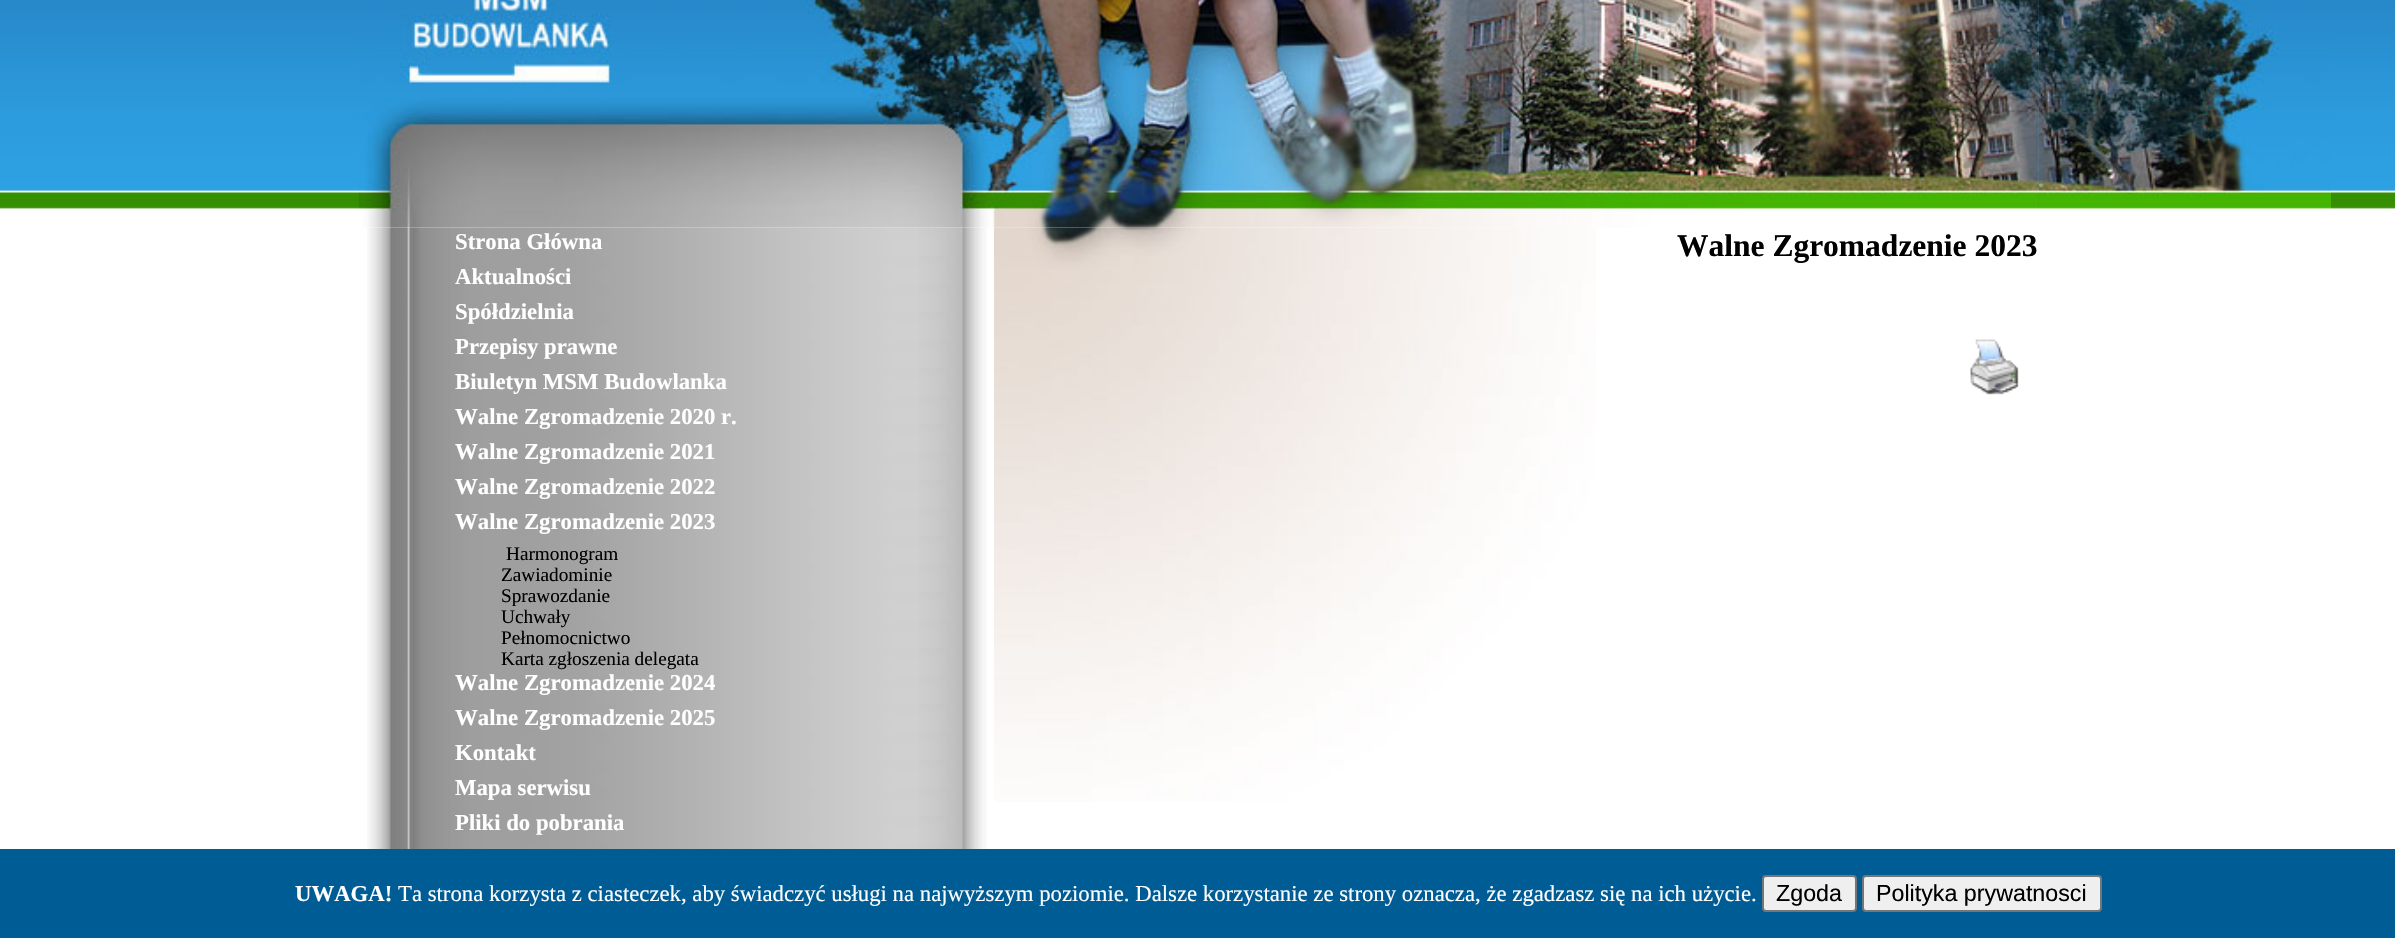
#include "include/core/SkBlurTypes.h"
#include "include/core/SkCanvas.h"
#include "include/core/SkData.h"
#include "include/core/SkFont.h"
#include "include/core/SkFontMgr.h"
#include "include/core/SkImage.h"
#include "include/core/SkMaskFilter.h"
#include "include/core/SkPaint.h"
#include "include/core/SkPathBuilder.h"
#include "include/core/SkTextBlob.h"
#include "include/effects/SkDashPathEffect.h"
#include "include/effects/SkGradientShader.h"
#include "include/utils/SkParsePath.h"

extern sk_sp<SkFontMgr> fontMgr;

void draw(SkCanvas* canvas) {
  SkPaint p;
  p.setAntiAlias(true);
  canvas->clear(SK_ColorWHITE);
  canvas->drawImageRect(SkImages::DeferredFromEncodedData(SkData::MakeFromFileName("images/1.png")), SkRect::MakeLTRB(0, 0, 2395, 209), SkSamplingOptions());
  canvas->drawImageRect(SkImages::DeferredFromEncodedData(SkData::MakeFromFileName("images/3.png")), SkRect::MakeLTRB(2038, 0, 2331, 209), SkSamplingOptions());
  canvas->drawImageRect(SkImages::DeferredFromEncodedData(SkData::MakeFromFileName("images/4.png")), SkRect::MakeLTRB(367, 227, 987, 849), SkSamplingOptions());
  canvas->drawImageRect(SkImages::DeferredFromEncodedData(SkData::MakeFromFileName("images/5.png")), SkRect::MakeLTRB(994, 227, 1596, 802), SkSamplingOptions());
  canvas->drawImageRect(SkImages::DeferredFromEncodedData(SkData::MakeFromFileName("images/2.png")), SkRect::MakeLTRB(358, 0, 2039, 228), SkSamplingOptions());
  canvas->drawImageRect(SkImages::DeferredFromEncodedData(SkData::MakeFromFileName("images/6.png")), SkRect::MakeLTRB(1970, 339, 2019, 395), SkSamplingOptions());
  p.setColor(SkColorSetRGB(0, 92, 149));
  canvas->drawRect(SkRect::MakeLTRB(0, 849, 2395, 938), p);
  p.setColor(SkColorSetRGB(239, 239, 239));
  canvas->drawRoundRect(SkRect::MakeLTRB(1763, 876, 1856, 911), 3, 3, p);
  p.setStyle(SkPaint::kStroke_Style);
  p.setStrokeWidth(2);
  p.setColor(SkColorSetRGB(118, 118, 118));
  canvas->drawRoundRect(SkRect::MakeLTRB(1763, 876, 1856, 911), 3, 3, p);
  p.setStyle(SkPaint::kFill_Style);
  p.setColor(SkColorSetRGB(239, 239, 239));
  canvas->drawRoundRect(SkRect::MakeLTRB(1863, 876, 2101, 911), 3, 3, p);
  p.setStyle(SkPaint::kStroke_Style);
  p.setColor(SkColorSetRGB(118, 118, 118));
  canvas->drawRoundRect(SkRect::MakeLTRB(1863, 876, 2101, 911), 3, 3, p);
  SkFont font1(fontMgr->matchFamilyStyle("Liberation Serif", SkFontStyle::Bold()), 22.75f);
  font1.setSubpixel(true);
  p.setStyle(SkPaint::kFill_Style);
  p.setColor(SK_ColorWHITE);
  canvas->drawString("Strona Główna", 455, 249, font1, p);
  canvas->drawString("Aktualności", 455, 284, font1, p);
  canvas->drawString("Spółdzielnia", 455, 319, font1, p);
  canvas->drawString("Przepisy prawne", 455, 354, font1, p);
  canvas->drawString("Biuletyn MSM Budowlanka", 455, 389, font1, p);
  canvas->drawString("Walne Zgromadzenie 2020 r.", 455, 424, font1, p);
  canvas->drawString("Walne Zgromadzenie 2021", 455, 459, font1, p);
  canvas->drawString("Walne Zgromadzenie 2022", 455, 494, font1, p);
  canvas->drawString("Walne Zgromadzenie 2023", 455, 529, font1, p);
  SkFont font2(fontMgr->matchFamilyStyle("Liberation Serif", SkFontStyle::Normal()), 19.25f);
  font2.setSubpixel(true);
  p.setColor(SK_ColorBLACK);
  canvas->drawString("Harmonogram", 506, 560, font2, p);
  canvas->drawString("Zawiadominie", 501, 581, font2, p);
  canvas->drawString("Sprawozdanie", 501, 602, font2, p);
  canvas->drawString("Uchwały", 501, 623, font2, p);
  canvas->drawString("Pełnomocnictwo", 501, 644, font2, p);
  canvas->drawString("Karta zgłoszenia delegata", 501, 665, font2, p);
  p.setColor(SK_ColorWHITE);
  canvas->drawString("Walne Zgromadzenie 2024", 455, 690, font1, p);
  canvas->drawString("Walne Zgromadzenie 2025", 455, 725, font1, p);
  canvas->drawString("Kontakt", 455, 760, font1, p);
  canvas->drawString("Mapa serwisu", 455, 795, font1, p);
  canvas->drawString("Pliki do pobrania", 455, 830, font1, p);
  SkFont font3(fontMgr->matchFamilyStyle("Liberation Serif", SkFontStyle::Bold()), 31.5f);
  font3.setSubpixel(true);
  p.setColor(SK_ColorBLACK);
  canvas->drawString("Walne Zgromadzenie 2023", 1677, 256, font3, p);
  p.setColor(SK_ColorWHITE);
  canvas->drawString("UWAGA!", 295, 901, font1, p);
  SkFont font4(fontMgr->matchFamilyStyle("Liberation Serif", SkFontStyle::Normal()), 22.75f);
  font4.setSubpixel(true);
  canvas->drawString("Ta strona korzysta z ciasteczek, aby świadczyć usługi na najwyższym poziomie. Dalsze korzystanie ze strony oznacza, że zgadzasz się na ich użycie.", 398, 901, font4, p);
  SkFont font5(fontMgr->matchFamilyStyle("Liberation Sans", SkFontStyle::Normal()), 23.25f);
  font5.setSubpixel(true);
  p.setColor(SK_ColorBLACK);
  canvas->drawString("Zgoda", 1776, 901, font5, p);
  canvas->drawString("Polityka prywatnosci", 1876, 901, font5, p);
}
